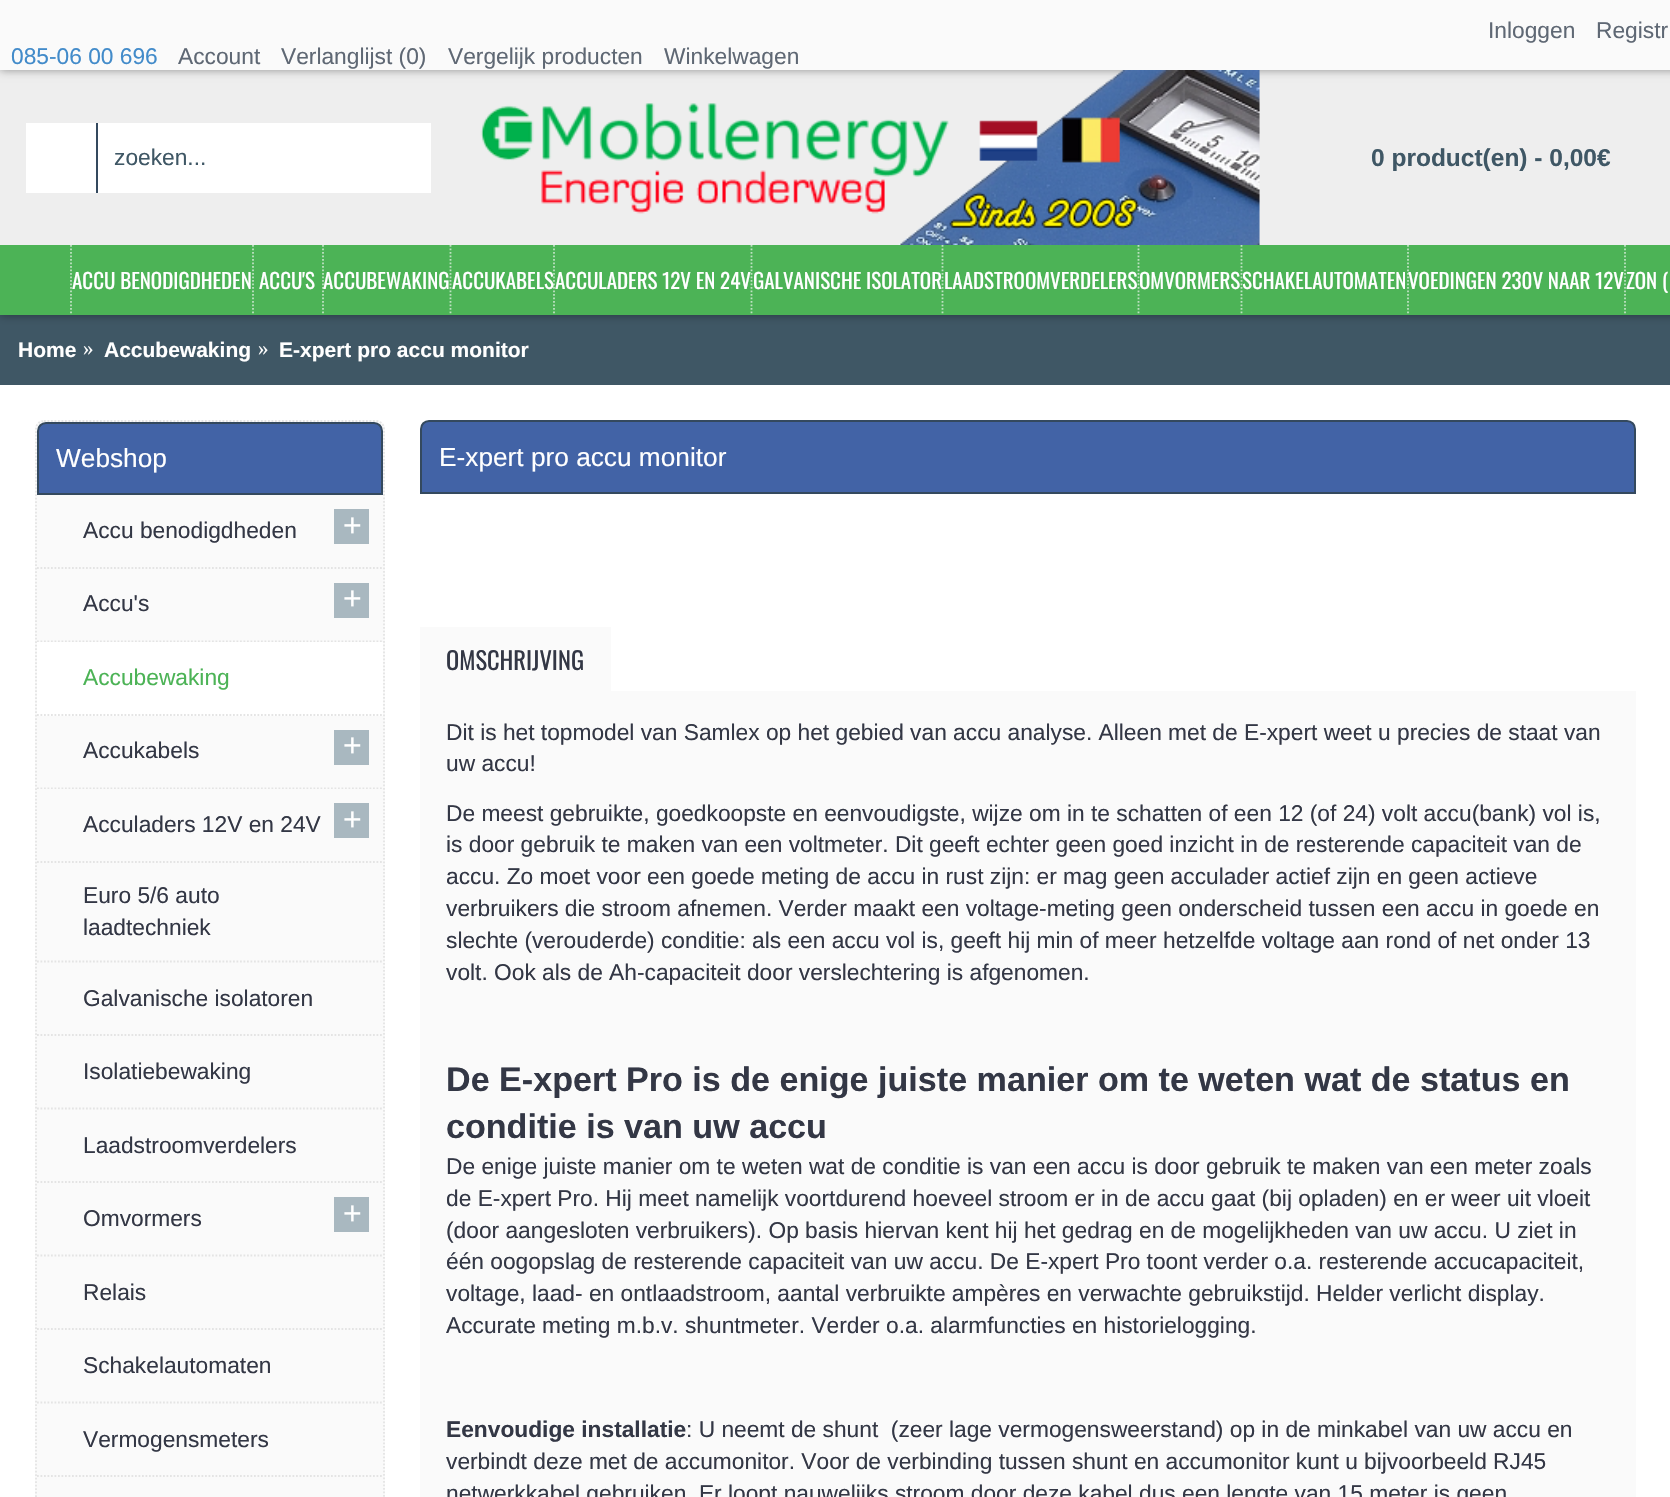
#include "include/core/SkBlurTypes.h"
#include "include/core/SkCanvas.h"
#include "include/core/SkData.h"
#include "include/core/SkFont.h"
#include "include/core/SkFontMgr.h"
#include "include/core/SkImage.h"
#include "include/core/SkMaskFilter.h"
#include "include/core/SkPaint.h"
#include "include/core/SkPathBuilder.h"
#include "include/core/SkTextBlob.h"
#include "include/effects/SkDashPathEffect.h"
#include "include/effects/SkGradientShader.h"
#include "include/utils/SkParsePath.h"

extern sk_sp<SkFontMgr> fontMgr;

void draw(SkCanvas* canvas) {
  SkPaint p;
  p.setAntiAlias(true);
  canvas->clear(SK_ColorWHITE);
  p.setColor(SkColorSetRGB(63, 87, 101));
  canvas->drawRect(SkRect::MakeLTRB(0, 315, 1670, 385), p);
  p.setColor(SkColorSetARGB(102, 0, 0, 0));
  p.setMaskFilter(SkMaskFilter::MakeBlur(kNormal_SkBlurStyle, 4.5f));
  canvas->drawRect(SkRect::MakeLTRB(0, 0, 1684, 315), p);
  p.setMaskFilter(nullptr);
  p.setColor(SkColorSetRGB(238, 238, 238));
  canvas->drawRect(SkRect::MakeLTRB(0, 70, 1670, 245), p);
  p.setColor(SkColorSetARGB(102, 0, 0, 0));
  p.setMaskFilter(SkMaskFilter::MakeBlur(kNormal_SkBlurStyle, 4.5f));
  canvas->drawRect(SkRect::MakeLTRB(0, 0, 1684, 70), p);
  p.setMaskFilter(nullptr);
  p.setColor(SkColorSetRGB(250, 250, 250));
  canvas->drawRect(SkRect::MakeLTRB(0, 0, 1670, 70), p);
  p.setColor(SK_ColorWHITE);
  canvas->drawRect(SkRect::MakeLTRB(26, 123, 431, 193), p);
  p.setColor(SkColorSetRGB(52, 73, 94));
  canvas->drawRect(SkRect::MakeLTRB(96, 123, 98, 193), p);
  canvas->drawImageRect(SkImages::DeferredFromEncodedData(SkData::MakeFromFileName("images/1.png")), SkRect::MakeLTRB(480, 70, 1260, 245), SkSamplingOptions());
  p.setColor(SkColorSetRGB(76, 179, 86));
  canvas->drawRect(SkRect::MakeLTRB(0, 245, 1670, 315), p);
  p.setStyle(SkPaint::kStroke_Style);
  p.setStrokeWidth(1.8f);
  p.setColor(SkColorSetRGB(189, 225, 193));
  p.setPathEffect(SkDashPathEffect::Make({{1.75f, 1.75f}}, 0));
  canvas->drawPath(SkPathBuilder().moveTo(71, 245).lineTo(71, 315).detach(), p);
  p.setPathEffect(nullptr);
  p.setPathEffect(SkDashPathEffect::Make({{1.75f, 1.75f}}, 0));
  canvas->drawPath(SkPathBuilder().moveTo(253, 245).lineTo(253, 315).detach(), p);
  p.setPathEffect(nullptr);
  p.setPathEffect(SkDashPathEffect::Make({{1.75f, 1.75f}}, 0));
  canvas->drawPath(SkPathBuilder().moveTo(323, 245).lineTo(323, 315).detach(), p);
  p.setPathEffect(nullptr);
  p.setPathEffect(SkDashPathEffect::Make({{1.75f, 1.75f}}, 0));
  canvas->drawPath(SkPathBuilder().moveTo(450.5f, 245).lineTo(450.5f, 315).detach(), p);
  p.setPathEffect(nullptr);
  p.setPathEffect(SkDashPathEffect::Make({{1.75f, 1.75f}}, 0));
  canvas->drawPath(SkPathBuilder().moveTo(554, 245).lineTo(554, 315).detach(), p);
  p.setPathEffect(nullptr);
  p.setPathEffect(SkDashPathEffect::Make({{1.75f, 1.75f}}, 0));
  canvas->drawPath(SkPathBuilder().moveTo(1138.5f, 245).lineTo(1138.5f, 315).detach(), p);
  p.setPathEffect(nullptr);
  p.setPathEffect(SkDashPathEffect::Make({{1.75f, 1.75f}}, 0));
  canvas->drawPath(SkPathBuilder().moveTo(1241.5f, 245).lineTo(1241.5f, 315).detach(), p);
  p.setPathEffect(nullptr);
  p.setPathEffect(SkDashPathEffect::Make({{1.75f, 1.75f}}, 0));
  canvas->drawPath(SkPathBuilder().moveTo(1408, 245).lineTo(1408, 315).detach(), p);
  p.setPathEffect(nullptr);
  p.setPathEffect(SkDashPathEffect::Make({{1.75f, 1.75f}}, 0));
  canvas->drawPath(SkPathBuilder().moveTo(1625, 245).lineTo(1625, 315).detach(), p);
  p.setPathEffect(nullptr);
  p.setStyle(SkPaint::kFill_Style);
  p.setColor(SkColorSetRGB(250, 250, 250));
  canvas->drawRoundRect(SkRect::MakeLTRB(35, 420, 385, 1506), 9, 9, p);
  p.setStyle(SkPaint::kStroke_Style);
  p.setColor(SkColorSetRGB(228, 228, 228));
  p.setPathEffect(SkDashPathEffect::Make({{1.75f, 1.75f}}, 0));
  canvas->drawPath(SkPathBuilder().moveTo(44, 421).lineTo(376, 421).cubicTo(380.5f, 421, 384, 424.5f, 384, 429).lineTo(384, 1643).cubicTo(384, 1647.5f, 380.5f, 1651, 376, 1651).lineTo(44, 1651).cubicTo(39.5f, 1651, 36, 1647.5f, 36, 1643).lineTo(36, 429).cubicTo(36, 424.5f, 39.5f, 421, 44, 421).close().detach(), p);
  p.setPathEffect(nullptr);
  p.setStyle(SkPaint::kFill_Style);
  p.setColor(SkColorSetRGB(66, 99, 166));
  canvas->drawPath(SkPathBuilder().moveTo(46, 423).lineTo(374, 423).cubicTo(378.5f, 423, 382, 426.5f, 382, 431).lineTo(382, 494).lineTo(38, 494).lineTo(38, 431).cubicTo(38, 426.5f, 41.5f, 423, 46, 423).close().detach(), p);
  p.setStyle(SkPaint::kStroke_Style);
  p.setStrokeWidth(2);
  p.setColor(SkColorSetRGB(52, 73, 94));
  canvas->drawPath(SkPathBuilder().moveTo(46, 423).lineTo(374, 423).cubicTo(378.5f, 423, 382, 426.5f, 382, 431).lineTo(382, 494).lineTo(38, 494).lineTo(38, 431).cubicTo(38, 426.5f, 41.5f, 423, 46, 423).close().detach(), p);
  p.setStrokeWidth(1.8f);
  p.setColor(SkColorSetRGB(228, 228, 228));
  p.setPathEffect(SkDashPathEffect::Make({{1.75f, 1.75f}}, 0));
  canvas->drawPath(SkPathBuilder().moveTo(37, 568).lineTo(383, 568).detach(), p);
  p.setPathEffect(nullptr);
  p.setStyle(SkPaint::kFill_Style);
  p.setColor(SkColorSetRGB(169, 184, 192));
  canvas->drawRect(SkRect::MakeLTRB(334, 509, 369, 544), p);
  p.setStyle(SkPaint::kStroke_Style);
  p.setColor(SkColorSetRGB(228, 228, 228));
  p.setPathEffect(SkDashPathEffect::Make({{1.75f, 1.75f}}, 0));
  canvas->drawPath(SkPathBuilder().moveTo(37, 641.5f).lineTo(383, 641.5f).detach(), p);
  p.setPathEffect(nullptr);
  p.setStyle(SkPaint::kFill_Style);
  p.setColor(SkColorSetRGB(169, 184, 192));
  canvas->drawRect(SkRect::MakeLTRB(334, 583, 369, 618), p);
  p.setColor(SK_ColorWHITE);
  canvas->drawRect(SkRect::MakeLTRB(37, 642, 383, 716), p);
  p.setStyle(SkPaint::kStroke_Style);
  p.setColor(SkColorSetRGB(228, 228, 228));
  p.setPathEffect(SkDashPathEffect::Make({{1.75f, 1.75f}}, 0));
  canvas->drawPath(SkPathBuilder().moveTo(37, 715).lineTo(383, 715).detach(), p);
  p.setPathEffect(nullptr);
  p.setPathEffect(SkDashPathEffect::Make({{1.75f, 1.75f}}, 0));
  canvas->drawPath(SkPathBuilder().moveTo(37, 788.5f).lineTo(383, 788.5f).detach(), p);
  p.setPathEffect(nullptr);
  p.setStyle(SkPaint::kFill_Style);
  p.setColor(SkColorSetRGB(169, 184, 192));
  canvas->drawRect(SkRect::MakeLTRB(334, 730, 369, 765), p);
  p.setColor(SkColorSetRGB(250, 250, 250));
  canvas->drawRect(SkRect::MakeLTRB(37, 789, 382, 790), p);
  p.setStyle(SkPaint::kStroke_Style);
  p.setColor(SkColorSetRGB(228, 228, 228));
  p.setPathEffect(SkDashPathEffect::Make({{1.75f, 1.75f}}, 0));
  canvas->drawPath(SkPathBuilder().moveTo(37, 862).lineTo(383, 862).detach(), p);
  p.setPathEffect(nullptr);
  p.setStyle(SkPaint::kFill_Style);
  p.setColor(SkColorSetRGB(169, 184, 192));
  canvas->drawRect(SkRect::MakeLTRB(334, 803, 369, 838), p);
  p.setStyle(SkPaint::kStroke_Style);
  p.setColor(SkColorSetRGB(228, 228, 228));
  p.setPathEffect(SkDashPathEffect::Make({{1.75f, 1.75f}}, 0));
  canvas->drawPath(SkPathBuilder().moveTo(37, 961.5f).lineTo(383, 961.5f).detach(), p);
  p.setPathEffect(nullptr);
  p.setPathEffect(SkDashPathEffect::Make({{1.75f, 1.75f}}, 0));
  canvas->drawPath(SkPathBuilder().moveTo(37, 1035).lineTo(383, 1035).detach(), p);
  p.setPathEffect(nullptr);
  p.setPathEffect(SkDashPathEffect::Make({{1.75f, 1.75f}}, 0));
  canvas->drawPath(SkPathBuilder().moveTo(37, 1108.5f).lineTo(383, 1108.5f).detach(), p);
  p.setPathEffect(nullptr);
  p.setPathEffect(SkDashPathEffect::Make({{1.75f, 1.75f}}, 0));
  canvas->drawPath(SkPathBuilder().moveTo(37, 1182).lineTo(383, 1182).detach(), p);
  p.setPathEffect(nullptr);
  p.setPathEffect(SkDashPathEffect::Make({{1.75f, 1.75f}}, 0));
  canvas->drawPath(SkPathBuilder().moveTo(37, 1255.5f).lineTo(383, 1255.5f).detach(), p);
  p.setPathEffect(nullptr);
  p.setStyle(SkPaint::kFill_Style);
  p.setColor(SkColorSetRGB(169, 184, 192));
  canvas->drawRect(SkRect::MakeLTRB(334, 1197, 369, 1232), p);
  p.setStyle(SkPaint::kStroke_Style);
  p.setColor(SkColorSetRGB(228, 228, 228));
  p.setPathEffect(SkDashPathEffect::Make({{1.75f, 1.75f}}, 0));
  canvas->drawPath(SkPathBuilder().moveTo(37, 1329).lineTo(383, 1329).detach(), p);
  p.setPathEffect(nullptr);
  p.setPathEffect(SkDashPathEffect::Make({{1.75f, 1.75f}}, 0));
  canvas->drawPath(SkPathBuilder().moveTo(37, 1402.5f).lineTo(383, 1402.5f).detach(), p);
  p.setPathEffect(nullptr);
  p.setPathEffect(SkDashPathEffect::Make({{1.75f, 1.75f}}, 0));
  canvas->drawPath(SkPathBuilder().moveTo(37, 1476).lineTo(383, 1476).detach(), p);
  p.setPathEffect(nullptr);
  p.setStyle(SkPaint::kFill_Style);
  p.setColor(SkColorSetRGB(66, 99, 166));
  canvas->drawPath(SkPathBuilder().moveTo(429, 421).lineTo(1627, 421).cubicTo(1631.5f, 421, 1635, 424.5f, 1635, 429).lineTo(1635, 493).lineTo(421, 493).lineTo(421, 429).cubicTo(421, 424.5f, 424.5f, 421, 429, 421).close().detach(), p);
  p.setStyle(SkPaint::kStroke_Style);
  p.setStrokeWidth(2);
  p.setColor(SkColorSetRGB(52, 73, 94));
  canvas->drawPath(SkPathBuilder().moveTo(429, 421).lineTo(1627, 421).cubicTo(1631.5f, 421, 1635, 424.5f, 1635, 429).lineTo(1635, 493).lineTo(421, 493).lineTo(421, 429).cubicTo(421, 424.5f, 424.5f, 421, 429, 421).close().detach(), p);
  p.setStyle(SkPaint::kFill_Style);
  p.setColor(SkColorSetRGB(250, 250, 250));
  canvas->drawRect(SkRect::MakeLTRB(420, 627, 611, 691), p);
  canvas->drawRect(SkRect::MakeLTRB(420, 691, 1636, 1497), p);
  SkFont font1(fontMgr->matchFamilyStyle("Liberation Sans", SkFontStyle::Normal()), 22.75f);
  font1.setSubpixel(true);
  p.setColor(SkColorSetRGB(95, 104, 116));
  canvas->drawString("Inloggen", 1488, 38, font1, p);
  canvas->drawString("Registr", 1596, 38, font1, p);
  p.setColor(SkColorSetRGB(66, 139, 202));
  canvas->drawString("085-06 00 696", 11, 64, font1, p);
  p.setColor(SkColorSetRGB(95, 104, 116));
  canvas->drawString("Account", 178, 64, font1, p);
  canvas->drawString("Verlanglijst (0)", 281, 64, font1, p);
  canvas->drawString("Vergelijk producten", 448, 64, font1, p);
  canvas->drawString("Winkelwagen", 664, 64, font1, p);
  p.setColor(SkColorSetRGB(63, 87, 101));
  canvas->drawString("zoeken...", 114, 165, font1, p);
  SkFont font2(fontMgr->matchFamilyStyle("Liberation Sans", SkFontStyle::Bold()), 24.5f);
  font2.setSubpixel(true);
  canvas->drawString("0 product(en) - 0,00€", 1371, 166, font2, p);
  SkFont font3(fontMgr->matchFamilyStyle("Oswald", SkFontStyle::Normal()), 21);
  font3.setSubpixel(true);
  p.setColor(SK_ColorWHITE);
  canvas->drawString("ACCU BENODIGDHEDEN", 72, 289, font3, p);
  canvas->drawString("ACCU'S", 259, 289, font3, p);
  canvas->drawString("ACCUBEWAKING", 323, 289, font3, p);
  canvas->drawString("ACCUKABELS", 452, 289, font3, p);
  canvas->drawString("ACCULADERS 12V EN 24V", 555, 289, font3, p);
  p.setStyle(SkPaint::kStroke_Style);
  p.setStrokeWidth(1.8f);
  p.setColor(SkColorSetRGB(189, 225, 193));
  p.setPathEffect(SkDashPathEffect::Make({{1.75f, 1.75f}}, 0));
  canvas->drawPath(SkPathBuilder().moveTo(751.5f, 245).lineTo(751.5f, 315).detach(), p);
  p.setPathEffect(nullptr);
  p.setStyle(SkPaint::kFill_Style);
  p.setColor(SK_ColorWHITE);
  canvas->drawString("GALVANISCHE ISOLATOR", 753, 289, font3, p);
  p.setStyle(SkPaint::kStroke_Style);
  p.setColor(SkColorSetRGB(189, 225, 193));
  p.setPathEffect(SkDashPathEffect::Make({{1.75f, 1.75f}}, 0));
  canvas->drawPath(SkPathBuilder().moveTo(942.5f, 245).lineTo(942.5f, 315).detach(), p);
  p.setPathEffect(nullptr);
  p.setStyle(SkPaint::kFill_Style);
  p.setColor(SK_ColorWHITE);
  canvas->drawString("LAADSTROOMVERDELERS", 944, 289, font3, p);
  canvas->drawString("OMVORMERS", 1139, 289, font3, p);
  canvas->save();
  canvas->clipRect(SkRect::MakeLTRB(1243, 245, 1407, 315));
  canvas->drawString("SCHAKELAUTOMATEN", 1242, 289, font3, p);
  canvas->restore();
  canvas->drawString("VOEDINGEN 230V NAAR 12V", 1408, 289, font3, p);
  canvas->drawString("ZON (", 1626, 289, font3, p);
  SkFont font4(fontMgr->matchFamilyStyle("Liberation Sans", SkFontStyle::Bold()), 21);
  font4.setSubpixel(true);
  canvas->drawString("Home", 18, 357, font4, p);
  SkFont font5(fontMgr->matchFamilyStyle("Liberation Serif", SkFontStyle::Normal()), 21);
  font5.setSubpixel(true);
  canvas->drawString("»", 83, 355, font5, p);
  canvas->drawString("Accubewaking", 104, 357, font4, p);
  canvas->drawString("»", 258, 355, font5, p);
  canvas->drawString("E-xpert pro accu monitor", 279, 357, font4, p);
  SkFont font6(fontMgr->matchFamilyStyle("Liberation Sans", SkFontStyle::Normal()), 26.25f);
  font6.setSubpixel(true);
  canvas->drawString("Webshop", 56, 467, font6, p);
  p.setColor(SkColorSetRGB(51, 55, 69));
  canvas->drawString("Accu benodigdheden", 83, 538, font1, p);
  SkFont font7(fontMgr->matchFamilyStyle("Liberation Sans", SkFontStyle::Normal()), 32);
  font7.setSubpixel(true);
  p.setColor(SK_ColorWHITE);
  canvas->drawString("+", 343, 536, font7, p);
  p.setColor(SkColorSetRGB(51, 55, 69));
  canvas->drawString("Accu's", 83, 611, font1, p);
  p.setColor(SK_ColorWHITE);
  canvas->drawString("+", 343, 609, font7, p);
  p.setColor(SkColorSetRGB(76, 179, 86));
  canvas->drawString("Accubewaking", 83, 685, font1, p);
  p.setColor(SkColorSetRGB(51, 55, 69));
  canvas->drawString("Accukabels", 83, 758, font1, p);
  p.setColor(SK_ColorWHITE);
  canvas->drawString("+", 343, 756, font7, p);
  p.setColor(SkColorSetRGB(51, 55, 69));
  canvas->drawString("Acculaders 12V en 24V", 83, 832, font1, p);
  p.setColor(SK_ColorWHITE);
  canvas->drawString("+", 343, 830, font7, p);
  p.setColor(SkColorSetRGB(51, 55, 69));
  canvas->drawString("Euro 5/6 auto", 83, 903, font1, p);
  canvas->drawString("laadtechniek", 83, 935, font1, p);
  canvas->drawString("Galvanische isolatoren", 83, 1006, font1, p);
  canvas->drawString("Isolatiebewaking", 83, 1079, font1, p);
  canvas->drawString("Laadstroomverdelers", 83, 1153, font1, p);
  canvas->drawString("Omvormers", 83, 1226, font1, p);
  p.setColor(SK_ColorWHITE);
  canvas->drawString("+", 343, 1224, font7, p);
  p.setColor(SkColorSetRGB(51, 55, 69));
  canvas->drawString("Relais", 83, 1300, font1, p);
  canvas->drawString("Schakelautomaten", 83, 1373, font1, p);
  canvas->drawString("Vermogensmeters", 83, 1447, font1, p);
  p.setColor(SK_ColorWHITE);
  canvas->drawString("E-xpert pro accu monitor", 439, 466, font6, p);
  SkFont font8(fontMgr->matchFamilyStyle("Oswald", SkFontStyle::Normal()), 24.5f);
  font8.setSubpixel(true);
  p.setColor(SkColorSetRGB(51, 55, 69));
  canvas->drawString("OMSCHRIJVING", 446, 670, font8, p);
  canvas->drawString("Dit is het topmodel van Samlex op het gebied van accu analyse. Alleen met de E-xpert weet u precies de staat van", 446, 740, font1, p);
  canvas->drawString("uw accu!", 446, 771, font1, p);
  canvas->drawString("De meest gebruikte, goedkoopste en eenvoudigste, wijze om in te schatten of een 12 (of 24) volt accu(bank) vol is,", 446, 821, font1, p);
  canvas->drawString("is door gebruik te maken van een voltmeter. Dit geeft echter geen goed inzicht in de resterende capaciteit van de", 446, 852, font1, p);
  canvas->drawString("accu. Zo moet voor een goede meting de accu in rust zijn: er mag geen acculader actief zijn en geen actieve", 446, 884, font1, p);
  canvas->drawString("verbruikers die stroom afnemen. Verder maakt een voltage-meting geen onderscheid tussen een accu in goede en", 446, 916, font1, p);
  canvas->drawString("slechte (verouderde) conditie: als een accu vol is, geeft hij min of meer hetzelfde voltage aan rond of net onder 13", 446, 948, font1, p);
  canvas->drawString("volt. Ook als de Ah-capaciteit door verslechtering is afgenomen.", 446, 980, font1, p);
  SkFont font9(fontMgr->matchFamilyStyle("Liberation Sans", SkFontStyle::Bold()), 34.1f);
  font9.setSubpixel(true);
  canvas->drawString("De E-xpert Pro is de enige juiste manier om te weten wat de status en", 446, 1091, font9, p);
  canvas->drawString("conditie is van uw accu", 446, 1138, font9, p);
  canvas->drawString("De enige juiste manier om te weten wat de conditie is van een accu is door gebruik te maken van een meter zoals", 446, 1174, font1, p);
  canvas->drawString("de E-xpert Pro. Hij meet namelijk voortdurend hoeveel stroom er in de accu gaat (bij opladen) en er weer uit vloeit", 446, 1206, font1, p);
  canvas->drawString("(door aangesloten verbruikers). Op basis hiervan kent hij het gedrag en de mogelijkheden van uw accu. U ziet in", 446, 1238, font1, p);
  canvas->drawString("één oogopslag de resterende capaciteit van uw accu. De E-xpert Pro toont verder o.a. resterende accucapaciteit,", 446, 1269, font1, p);
  canvas->drawString("voltage, laad- en ontlaadstroom, aantal verbruikte ampères en verwachte gebruikstijd. Helder verlicht display.", 446, 1301, font1, p);
  canvas->drawString("Accurate meting m.b.v. shuntmeter. Verder o.a. alarmfuncties en historielogging.", 446, 1333, font1, p);
  SkFont font10(fontMgr->matchFamilyStyle("Liberation Sans", SkFontStyle::Bold()), 22.75f);
  font10.setSubpixel(true);
  canvas->drawString("Eenvoudige installatie", 446, 1437, font10, p);
  canvas->drawString(": U neemt de shunt  (zeer lage vermogensweerstand) op in de minkabel van uw accu en", 686, 1437, font1, p);
  canvas->drawString("verbindt deze met de accumonitor. Voor de verbinding tussen shunt en accumonitor kunt u bijvoorbeeld RJ45", 446, 1469, font1, p);
  canvas->drawString("netwerkkabel gebruiken. Er loopt nauwelijks stroom door deze kabel dus een lengte van 15 meter is geen", 446, 1501, font1, p);
}
